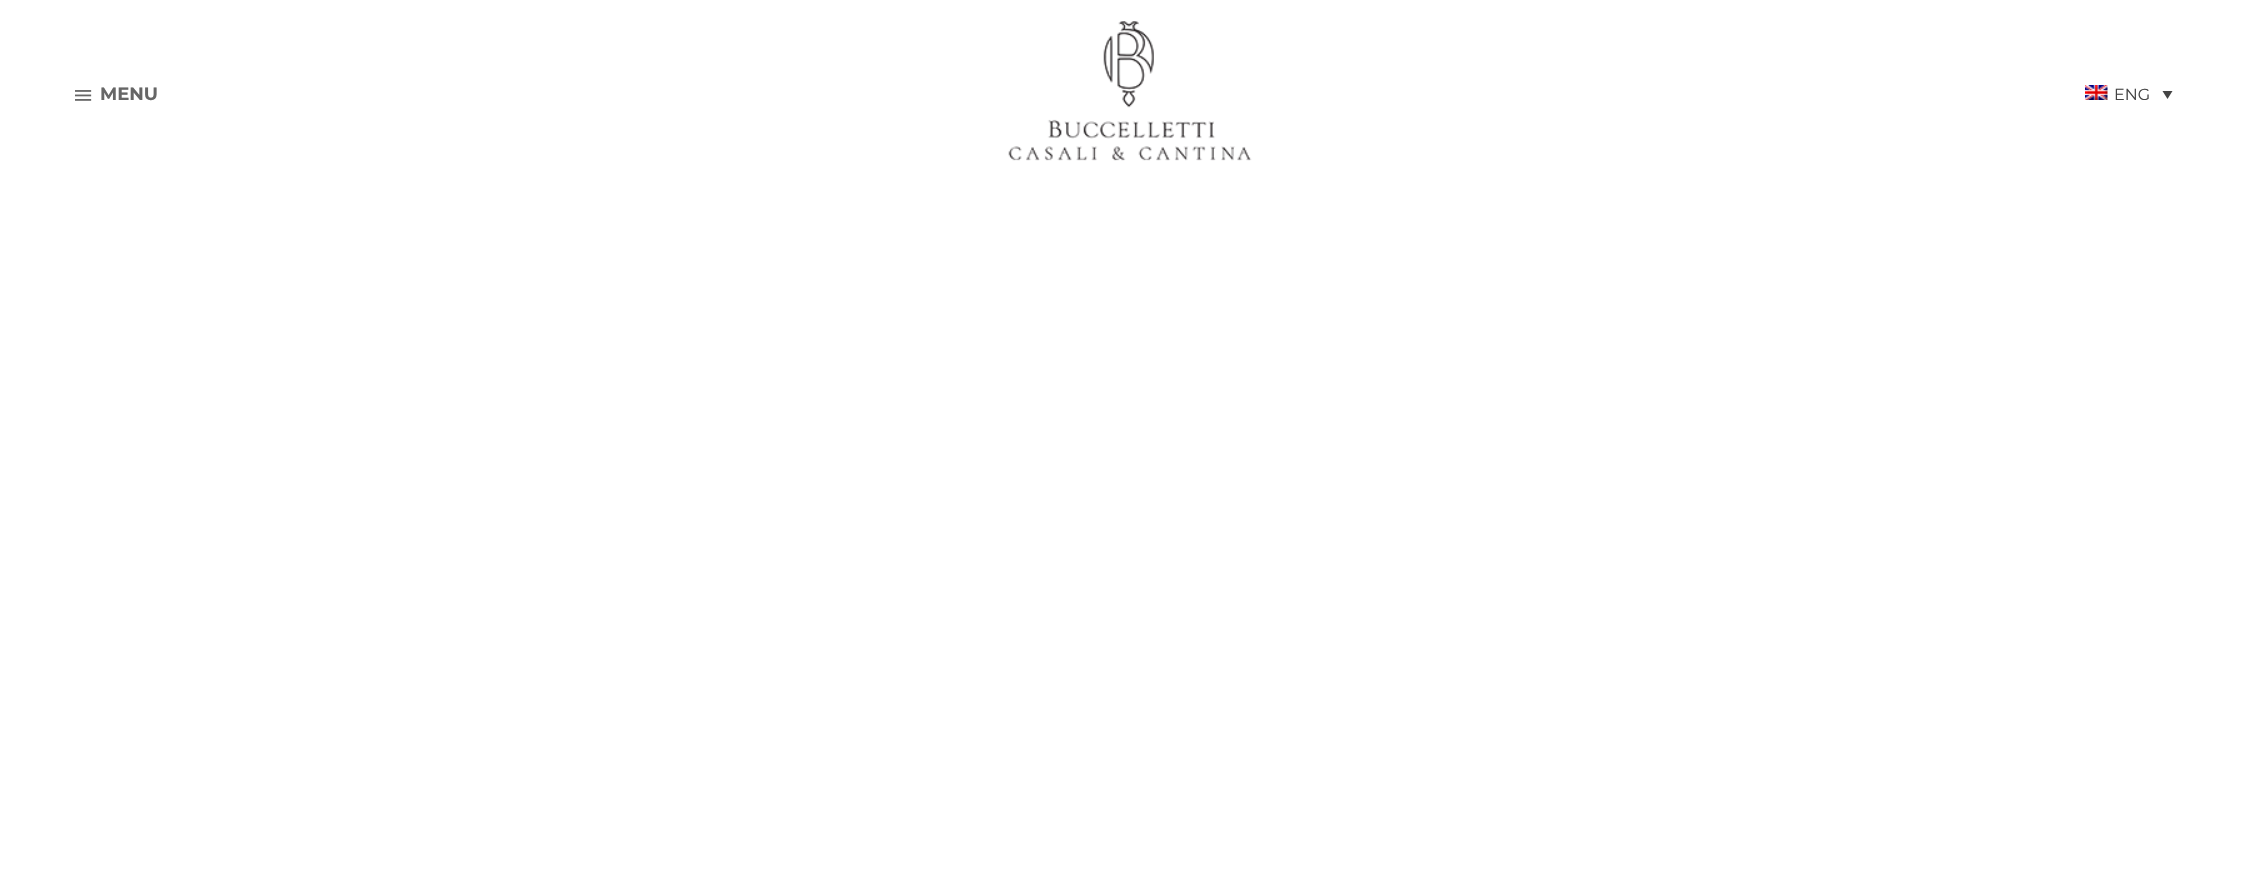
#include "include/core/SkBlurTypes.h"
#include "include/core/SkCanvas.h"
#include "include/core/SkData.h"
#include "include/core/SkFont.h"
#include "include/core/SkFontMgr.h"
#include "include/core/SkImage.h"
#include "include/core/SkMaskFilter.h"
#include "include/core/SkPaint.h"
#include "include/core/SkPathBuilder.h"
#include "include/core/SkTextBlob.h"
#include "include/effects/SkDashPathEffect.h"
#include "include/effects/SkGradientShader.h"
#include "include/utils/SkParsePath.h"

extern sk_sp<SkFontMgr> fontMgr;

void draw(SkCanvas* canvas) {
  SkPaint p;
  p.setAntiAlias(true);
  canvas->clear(SK_ColorWHITE);
  canvas->drawImageRect(SkImages::DeferredFromEncodedData(SkData::MakeFromFileName("images/1.png")), SkRect::MakeLTRB(75, 90, 92, 101), SkSamplingOptions());
  canvas->drawImageRect(SkImages::DeferredFromEncodedData(SkData::MakeFromFileName("images/2.png")), SkRect::MakeLTRB(1008, 21, 1252, 161), SkSamplingOptions());
  canvas->drawImageRect(SkImages::DeferredFromEncodedData(SkData::MakeFromFileName("images/3.png")), SkRect::MakeLTRB(2085, 85, 2108, 100), SkSamplingOptions());
  p.setColor(SkColorSetRGB(68, 68, 68));
  canvas->drawPath(SkPathBuilder().moveTo(2162.5f, 91).lineTo(2172.5f, 91).lineTo(2167.5f, 99).close().detach(), p);
  SkFont font1(fontMgr->matchFamilyStyle("Montserrat", SkFontStyle::Bold()), 18);
  font1.setSubpixel(true);
  p.setColor(SkColorSetRGB(102, 102, 102));
  canvas->drawString("MENU", 100, 100, font1, p);
  SkFont font2(fontMgr->matchFamilyStyle("Montserrat", SkFontStyle::Normal()), 16);
  font2.setSubpixel(true);
  p.setColor(SkColorSetRGB(68, 68, 68));
  canvas->drawString("ENG", 2114, 100, font2, p);
}
